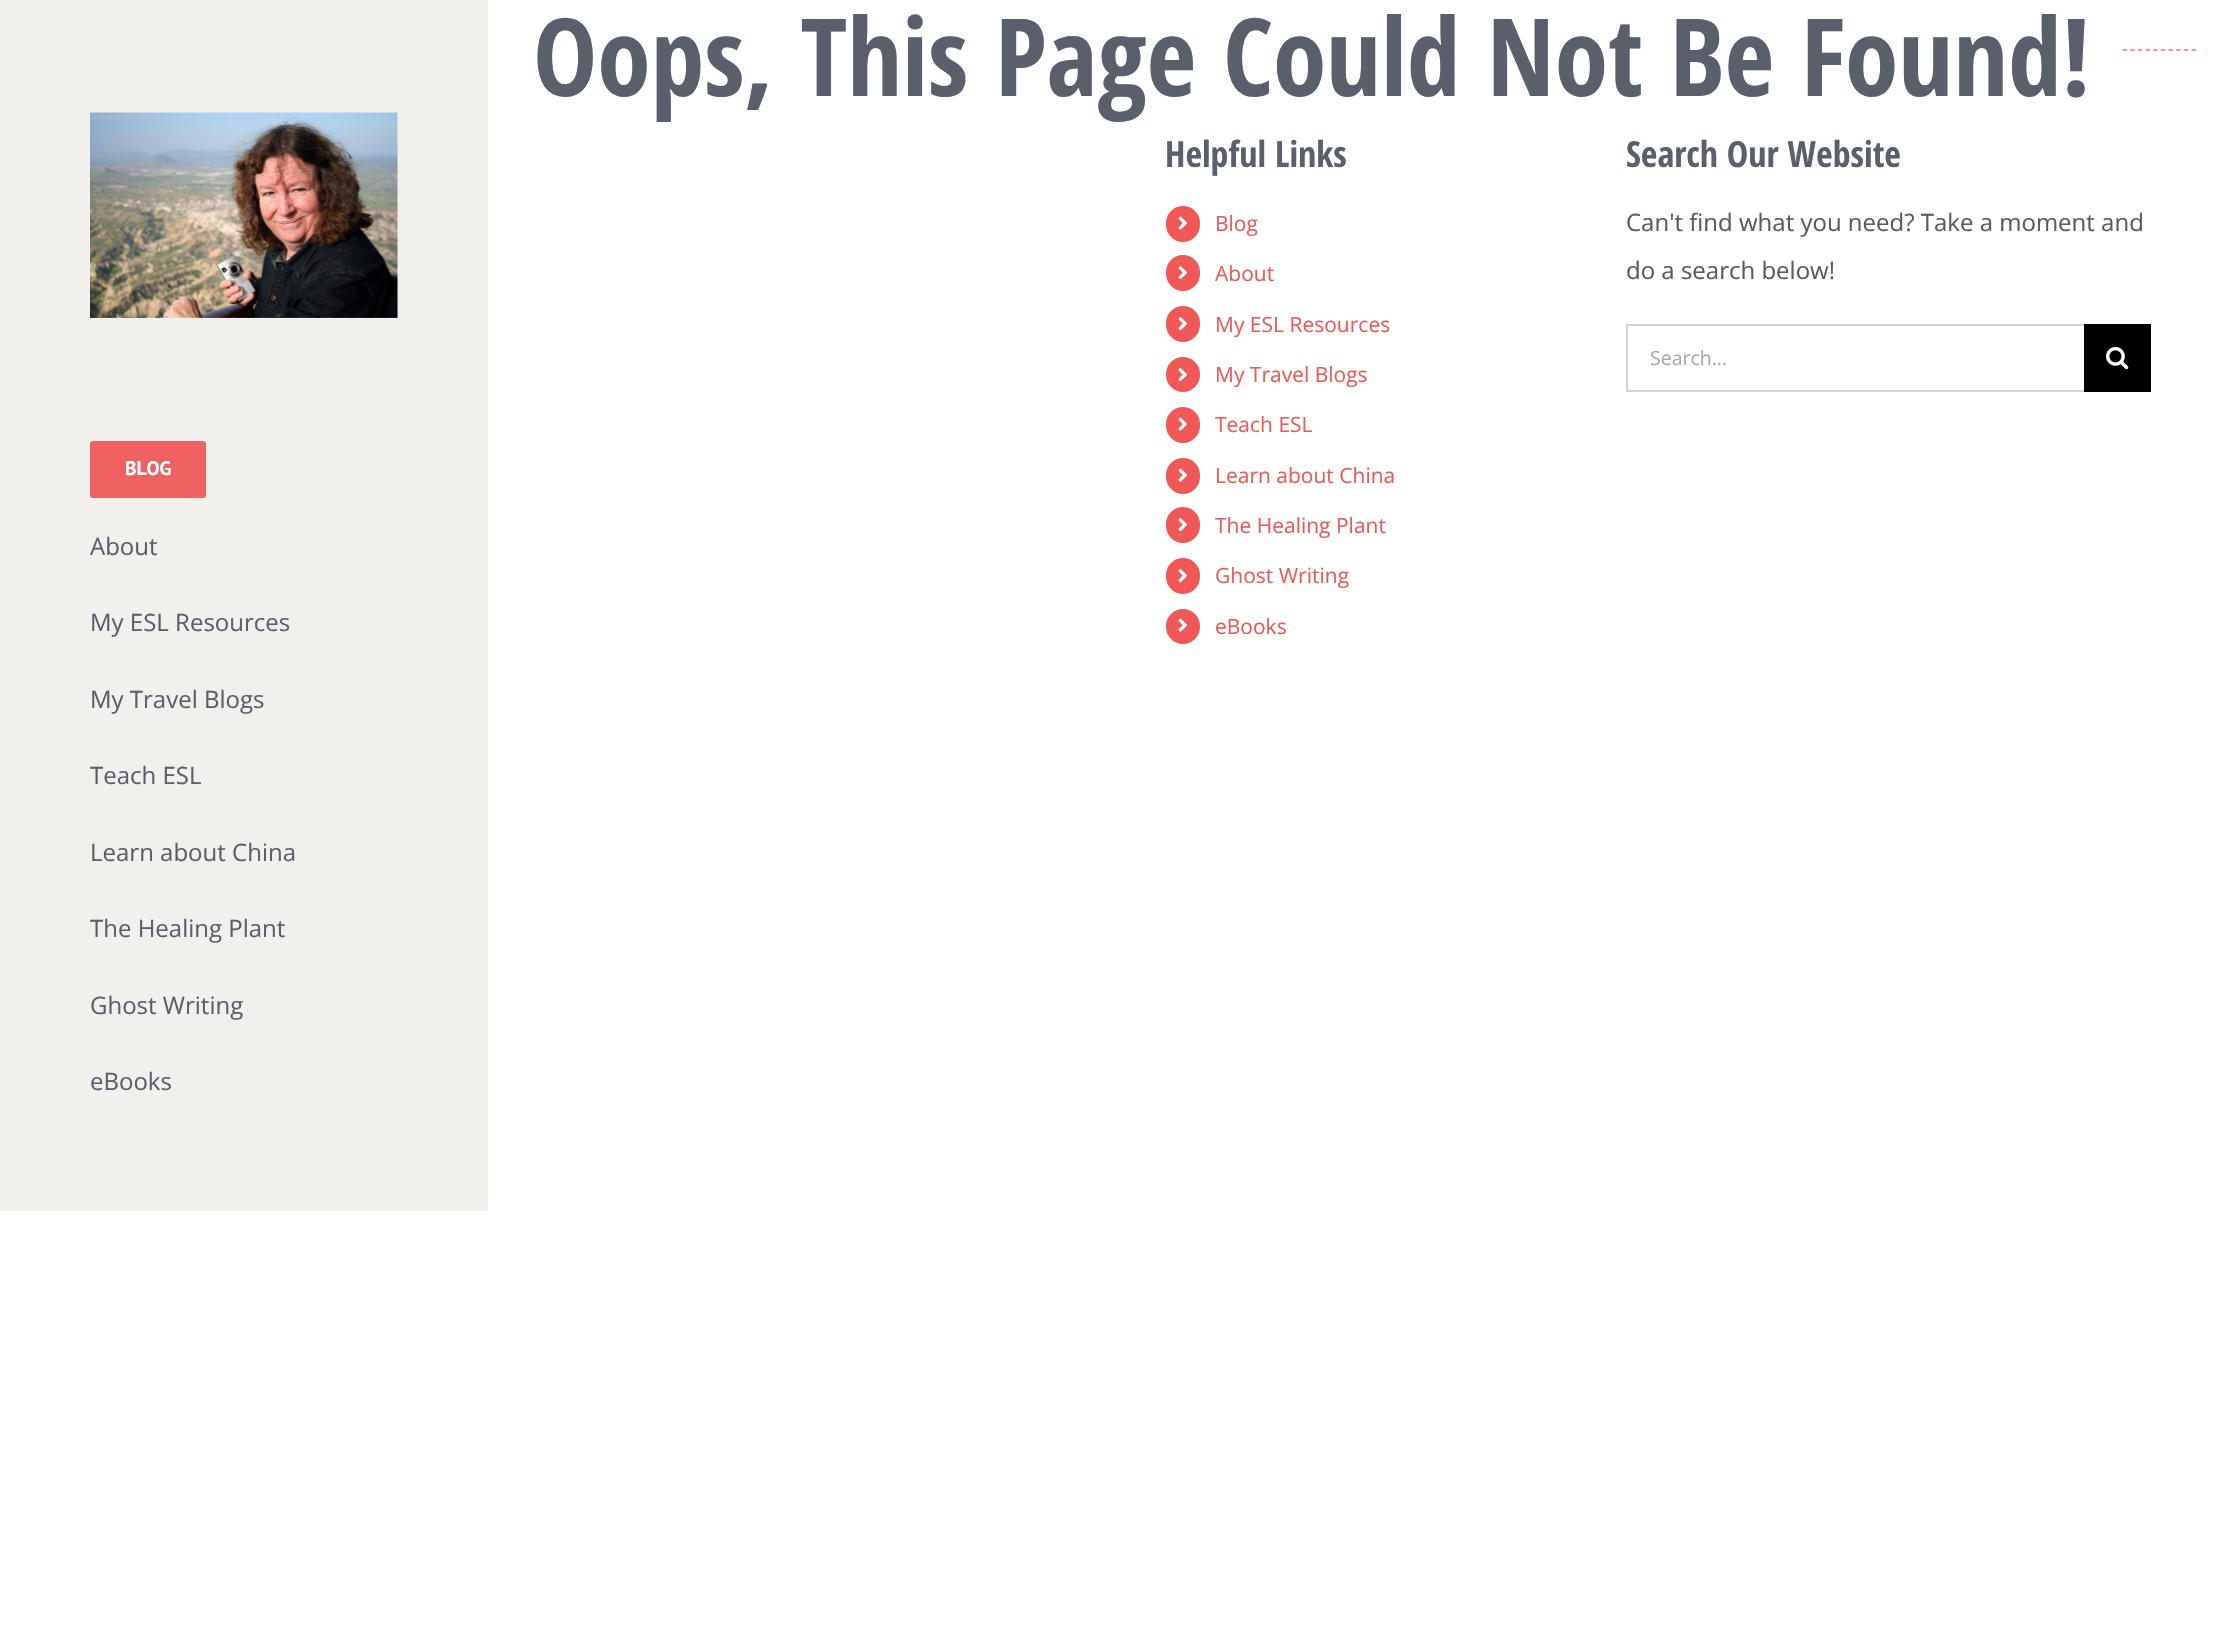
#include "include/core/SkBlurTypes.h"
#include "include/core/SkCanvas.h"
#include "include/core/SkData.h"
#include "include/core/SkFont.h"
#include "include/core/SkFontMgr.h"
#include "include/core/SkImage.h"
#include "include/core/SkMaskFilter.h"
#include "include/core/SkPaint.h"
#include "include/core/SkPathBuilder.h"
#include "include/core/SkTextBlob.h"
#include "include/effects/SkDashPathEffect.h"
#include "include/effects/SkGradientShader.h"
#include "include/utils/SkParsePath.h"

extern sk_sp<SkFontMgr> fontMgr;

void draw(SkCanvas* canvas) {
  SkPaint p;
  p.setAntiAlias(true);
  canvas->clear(SK_ColorWHITE);
  p.setStyle(SkPaint::kStroke_Style);
  p.setStrokeWidth(1.5f);
  p.setColor(SkColorSetRGB(244, 111, 114));
  p.setPathEffect(SkDashPathEffect::Make({{4.5f, 3.17f}}, 0));
  canvas->drawPath(SkPathBuilder().moveTo(2122.5f, 50).lineTo(2196, 50).detach(), p);
  p.setPathEffect(nullptr);
  p.setStyle(SkPaint::kFill_Style);
  p.setColor(SkColorSetRGB(240, 88, 88));
  canvas->drawRoundRect(SkRect::MakeLTRB(1166, 206, 1200, 242), 17, 17, p);
  canvas->drawImageRect(SkImages::DeferredFromEncodedData(SkData::MakeFromFileName("images/1.png")), SkRect::MakeLTRB(1178, 216, 1187, 230), SkSamplingOptions());
  canvas->drawRoundRect(SkRect::MakeLTRB(1166, 255, 1200, 291), 17, 17, p);
  canvas->drawImageRect(SkImages::DeferredFromEncodedData(SkData::MakeFromFileName("images/2.png")), SkRect::MakeLTRB(1178, 266, 1187, 280), SkSamplingOptions());
  canvas->drawRoundRect(SkRect::MakeLTRB(1166, 306, 1200, 342), 17, 17, p);
  canvas->drawImageRect(SkImages::DeferredFromEncodedData(SkData::MakeFromFileName("images/2.png")), SkRect::MakeLTRB(1178, 317, 1187, 331), SkSamplingOptions());
  canvas->drawRoundRect(SkRect::MakeLTRB(1166, 357, 1200, 392), 17, 17, p);
  canvas->drawImageRect(SkImages::DeferredFromEncodedData(SkData::MakeFromFileName("images/2.png")), SkRect::MakeLTRB(1178, 368, 1187, 382), SkSamplingOptions());
  canvas->drawRoundRect(SkRect::MakeLTRB(1166, 407, 1200, 443), 17, 17, p);
  canvas->drawImageRect(SkImages::DeferredFromEncodedData(SkData::MakeFromFileName("images/1.png")), SkRect::MakeLTRB(1178, 417, 1187, 431), SkSamplingOptions());
  canvas->drawRoundRect(SkRect::MakeLTRB(1166, 458, 1200, 494), 17, 17, p);
  canvas->drawImageRect(SkImages::DeferredFromEncodedData(SkData::MakeFromFileName("images/1.png")), SkRect::MakeLTRB(1178, 468, 1187, 482), SkSamplingOptions());
  canvas->drawRoundRect(SkRect::MakeLTRB(1166, 507, 1200, 543), 17, 17, p);
  canvas->drawImageRect(SkImages::DeferredFromEncodedData(SkData::MakeFromFileName("images/2.png")), SkRect::MakeLTRB(1178, 518, 1187, 532), SkSamplingOptions());
  canvas->drawRoundRect(SkRect::MakeLTRB(1166, 558, 1200, 594), 17, 17, p);
  canvas->drawImageRect(SkImages::DeferredFromEncodedData(SkData::MakeFromFileName("images/2.png")), SkRect::MakeLTRB(1178, 569, 1187, 583), SkSamplingOptions());
  canvas->drawRoundRect(SkRect::MakeLTRB(1166, 609, 1200, 644), 17, 17, p);
  canvas->drawImageRect(SkImages::DeferredFromEncodedData(SkData::MakeFromFileName("images/1.png")), SkRect::MakeLTRB(1178, 618, 1187, 632), SkSamplingOptions());
  p.setColor(SkColorSetRGB(210, 210, 210));
  canvas->drawRect(SkRect::MakeLTRB(1626, 324, 2084, 326), p);
  canvas->drawRect(SkRect::MakeLTRB(1626, 390, 2084, 392), p);
  canvas->drawRect(SkRect::MakeLTRB(1626, 324, 1628, 392), p);
  p.setColor(SK_ColorBLACK);
  canvas->drawRect(SkRect::MakeLTRB(2084, 324, 2151, 392), p);
  canvas->drawImageRect(SkImages::DeferredFromEncodedData(SkData::MakeFromFileName("images/3.png")), SkRect::MakeLTRB(2106, 346, 2129, 370), SkSamplingOptions());
  p.setColor(SkColorSetRGB(241, 240, 236));
  canvas->drawRect(SkRect::MakeLTRB(0, 0, 488, 1211), p);
  canvas->drawImageRect(SkImages::DeferredFromEncodedData(SkData::MakeFromFileName("images/4.png")), SkRect::MakeLTRB(90, 112, 398, 318), SkSamplingOptions());
  p.setColor(SkColorSetRGB(239, 98, 98));
  canvas->drawRoundRect(SkRect::MakeLTRB(90, 441, 206, 498), 3, 3, p);
  SkFont font1(fontMgr->matchFamilyStyle("Open Sans Condensed", SkFontStyle::Bold()), 108);
  font1.setSubpixel(true);
  p.setColor(SkColorSetRGB(89, 95, 107));
  canvas->drawString("Oops, This Page Could Not Be Found!", 533, 96, font1, p);
  SkFont font2(fontMgr->matchFamilyStyle("Open Sans Condensed", SkFontStyle::Bold()), 36);
  font2.setSubpixel(true);
  canvas->drawString("Helpful Links", 1165, 167, font2, p);
  SkFont font3(fontMgr->matchFamilyStyle("Open Sans", SkFontStyle::Normal()), 21);
  font3.setSubpixel(true);
  p.setColor(SkColorSetRGB(233, 91, 87));
  canvas->drawString("Blog", 1215, 231, font3, p);
  canvas->drawString("About", 1215, 281, font3, p);
  canvas->drawString("My ESL Resources", 1215, 332, font3, p);
  canvas->drawString("My Travel Blogs", 1215, 382, font3, p);
  canvas->drawString("Teach ESL", 1215, 432, font3, p);
  canvas->drawString("Learn about China", 1215, 483, font3, p);
  canvas->drawString("The Healing Plant", 1215, 533, font3, p);
  canvas->drawString("Ghost Writing", 1215, 583, font3, p);
  canvas->drawString("eBooks", 1215, 634, font3, p);
  p.setColor(SkColorSetRGB(89, 95, 107));
  canvas->drawString("Search Our Website", 1626, 167, font2, p);
  SkFont font4(fontMgr->matchFamilyStyle("Open Sans", SkFontStyle::Normal()), 24);
  font4.setSubpixel(true);
  p.setColor(SkColorSetRGB(91, 91, 91));
  canvas->drawString("Can't find what you need? Take a moment and", 1626, 231, font4, p);
  canvas->drawString("do a search below!", 1626, 279, font4, p);
  SkFont font5(fontMgr->matchFamilyStyle("Open Sans", SkFontStyle::Normal()), 19.5f);
  font5.setSubpixel(true);
  p.setColor(SkColorSetRGB(170, 169, 169));
  canvas->drawString("Search...", 1650, 365, font5, p);
  SkFont font6(fontMgr->matchFamilyStyle("PT Sans", SkFontStyle::Bold()), 19.5f);
  font6.setSubpixel(true);
  p.setColor(SK_ColorWHITE);
  canvas->drawString("BLOG", 125, 475, font6, p);
  p.setColor(SkColorSetRGB(89, 95, 107));
  canvas->drawString("About", 90, 555, font4, p);
  canvas->drawString("My ESL Resources", 90, 631, font4, p);
  canvas->drawString("My Travel Blogs", 90, 708, font4, p);
  canvas->drawString("Teach ESL", 90, 784, font4, p);
  canvas->drawString("Learn about China", 90, 861, font4, p);
  canvas->drawString("The Healing Plant", 90, 937, font4, p);
  canvas->drawString("Ghost Writing", 90, 1014, font4, p);
  canvas->drawString("eBooks", 90, 1090, font4, p);
}
